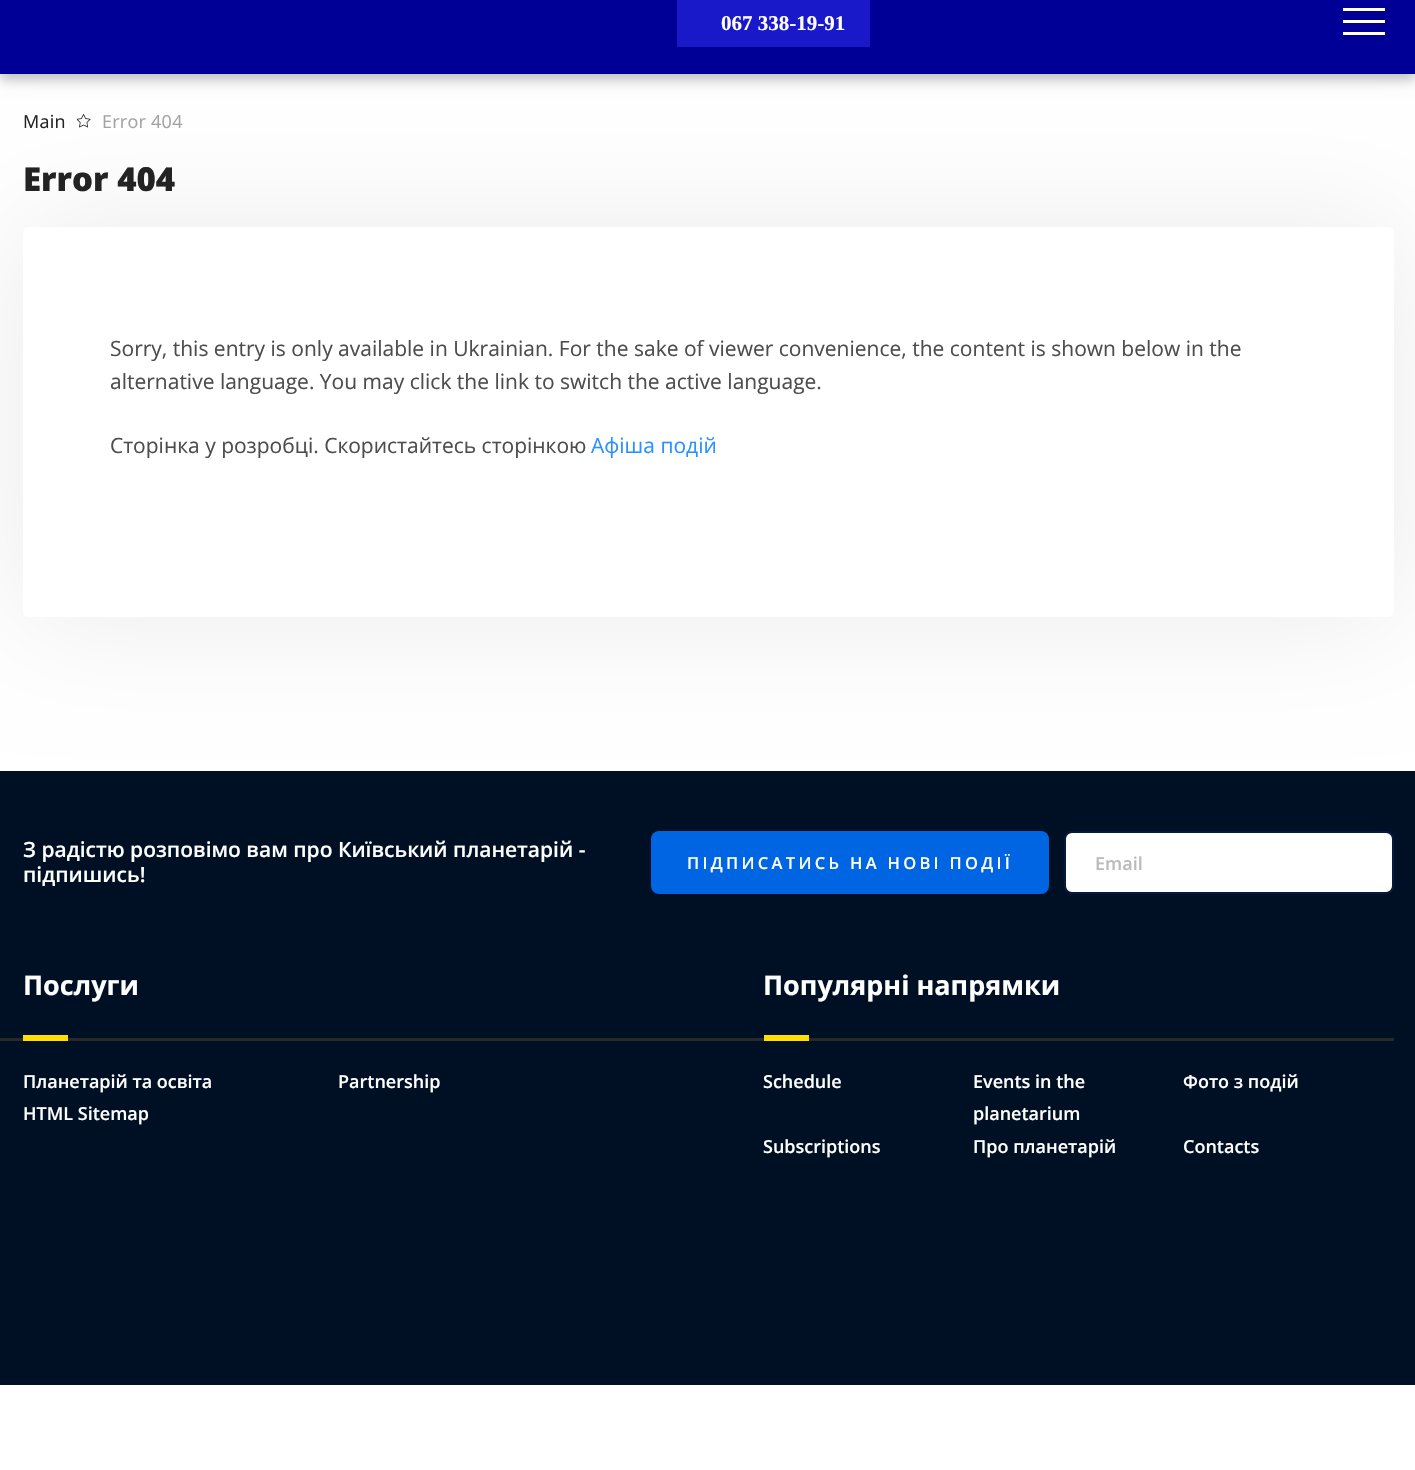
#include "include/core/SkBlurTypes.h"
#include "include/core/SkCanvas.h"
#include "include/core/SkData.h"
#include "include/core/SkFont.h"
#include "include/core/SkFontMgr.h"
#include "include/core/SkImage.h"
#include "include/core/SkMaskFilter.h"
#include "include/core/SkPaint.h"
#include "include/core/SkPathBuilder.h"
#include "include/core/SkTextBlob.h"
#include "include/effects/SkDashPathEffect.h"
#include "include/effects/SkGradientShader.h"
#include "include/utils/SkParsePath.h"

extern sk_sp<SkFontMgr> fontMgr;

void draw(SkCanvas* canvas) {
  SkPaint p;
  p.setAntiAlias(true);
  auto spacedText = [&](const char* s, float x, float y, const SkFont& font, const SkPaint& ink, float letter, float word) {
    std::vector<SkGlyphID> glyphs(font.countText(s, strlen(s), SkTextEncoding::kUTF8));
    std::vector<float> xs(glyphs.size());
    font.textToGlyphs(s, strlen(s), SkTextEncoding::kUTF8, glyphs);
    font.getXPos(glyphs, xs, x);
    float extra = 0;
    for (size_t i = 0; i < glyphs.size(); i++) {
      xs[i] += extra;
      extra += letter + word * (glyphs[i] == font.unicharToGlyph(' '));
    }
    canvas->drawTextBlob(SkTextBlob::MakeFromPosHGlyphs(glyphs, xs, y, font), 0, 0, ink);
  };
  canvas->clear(SK_ColorWHITE);
  p.setColor(SkColorSetARGB(64, 0, 0, 0));
  p.setMaskFilter(SkMaskFilter::MakeBlur(kNormal_SkBlurStyle, 6));
  canvas->drawRect(SkRect::MakeLTRB(0, -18, 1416, 80), p);
  p.setMaskFilter(nullptr);
  p.setColor(SkColorSetARGB(20, 0, 0, 0));
  p.setMaskFilter(SkMaskFilter::MakeBlur(kNormal_SkBlurStyle, 60));
  canvas->drawRoundRect(SkRect::MakeLTRB(23, 227, 1394, 617), 5, 5, p);
  p.setMaskFilter(nullptr);
  p.setColor(SkColorSetRGB(0, 0, 150));
  canvas->drawRect(SkRect::MakeLTRB(0, 0, 1415, 74), p);
  p.setColor(SkColorSetRGB(25, 25, 202));
  canvas->drawRect(SkRect::MakeLTRB(677, 0, 870, 47), p);
  p.setColor(SK_ColorWHITE);
  canvas->drawRect(SkRect::MakeLTRB(1343, 8, 1385, 11), p);
  canvas->drawRect(SkRect::MakeLTRB(1343, 20, 1385, 23), p);
  canvas->drawRect(SkRect::MakeLTRB(1343, 32, 1385, 35), p);
  canvas->drawImageRect(SkImages::DeferredFromEncodedData(SkData::MakeFromFileName("images/1.png")), SkRect::MakeLTRB(77, 114, 91, 128), SkSamplingOptions());
  canvas->drawRoundRect(SkRect::MakeLTRB(23, 227, 1394, 617), 5, 5, p);
  p.setColor(SkColorSetRGB(0, 16, 36));
  canvas->drawRect(SkRect::MakeLTRB(0, 771, 1415, 1385), p);
  p.setColor(SkColorSetRGB(0, 101, 226));
  canvas->drawRoundRect(SkRect::MakeLTRB(651, 831, 1049, 894), 8, 8, p);
  p.setColor(SK_ColorWHITE);
  canvas->drawRoundRect(SkRect::MakeLTRB(1065, 832, 1393, 893), 7, 7, p);
  p.setStyle(SkPaint::kStroke_Style);
  p.setStrokeWidth(2);
  p.setColor(SkColorSetRGB(0, 27, 61));
  canvas->drawRoundRect(SkRect::MakeLTRB(1065, 832, 1393, 893), 7, 7, p);
  p.setStyle(SkPaint::kFill_Style);
  p.setColor(SkColorSetRGB(41, 41, 41));
  canvas->drawRect(SkRect::MakeLTRB(0, 1038, 1394, 1041), p);
  p.setColor(SkColorSetRGB(255, 222, 0));
  canvas->drawRect(SkRect::MakeLTRB(23, 1035, 68, 1041), p);
  canvas->drawRect(SkRect::MakeLTRB(764, 1035, 809, 1041), p);
  SkFont font1(fontMgr->matchFamilyStyle("Liberation Serif", SkFontStyle::Bold()), 21);
  font1.setSubpixel(true);
  p.setColor(SK_ColorWHITE);
  canvas->drawString("067 338-19-91", 721, 30, font1, p);
  SkFont font2(fontMgr->matchFamilyStyle("Open Sans", SkFontStyle::Normal()), 18);
  font2.setSubpixel(true);
  p.setColor(SkColorSetRGB(35, 35, 35));
  spacedText("Main", 23, 128, font2, p, 0.25f, 0);
  p.setColor(SkColorSetRGB(163, 163, 163));
  spacedText("Error 404", 102, 128, font2, p, 0.25f, 0);
  SkFont font3(fontMgr->matchFamilyStyle("Open Sans", SkFontStyle(800, SkFontStyle::kNormal_Width, SkFontStyle::kUpright_Slant)), 33);
  font3.setSubpixel(true);
  p.setColor(SkColorSetRGB(35, 35, 35));
  canvas->drawString("Error 404", 23, 191, font3, p);
  SkFont font4(fontMgr->matchFamilyStyle("Open Sans", SkFontStyle::Normal()), 21);
  font4.setSubpixel(true);
  p.setColor(SkColorSetRGB(77, 77, 77));
  canvas->drawString("Sorry, this entry is only available in Ukrainian. For the sake of viewer convenience, the content is shown below in the", 110, 356, font4, p);
  canvas->drawString("alternative language. You may click the link to switch the active language.", 110, 389, font4, p);
  canvas->drawString("Сторінка у розробці. Скористайтесь сторінкою", 110, 453, font4, p);
  p.setColor(SkColorSetRGB(41, 146, 255));
  canvas->drawString("Афіша подій", 591, 453, font4, p);
  SkFont font5(fontMgr->matchFamilyStyle("Open Sans", SkFontStyle(600, SkFontStyle::kNormal_Width, SkFontStyle::kUpright_Slant)), 21);
  font5.setSubpixel(true);
  p.setColor(SK_ColorWHITE);
  canvas->drawString("З радістю розповімо вам про Київський планетарій -", 23, 857, font5, p);
  canvas->drawString("підпишись!", 23, 882, font5, p);
  SkFont font6(fontMgr->matchFamilyStyle("Open Sans", SkFontStyle(600, SkFontStyle::kNormal_Width, SkFontStyle::kUpright_Slant)), 16.5f);
  font6.setSubpixel(true);
  spacedText("ПІДПИСАТИСЬ НА НОВІ ПОДІЇ", 687, 869, font6, p, 3.3f, 0);
  SkFont font7(fontMgr->matchFamilyStyle("Open Sans", SkFontStyle(600, SkFontStyle::kNormal_Width, SkFontStyle::kUpright_Slant)), 18);
  font7.setSubpixel(true);
  p.setColor(SkColorSetRGB(187, 187, 187));
  canvas->drawString("Email", 1095, 870, font7, p);
  SkFont font8(fontMgr->matchFamilyStyle("Open Sans", SkFontStyle::Bold()), 27);
  font8.setSubpixel(true);
  p.setColor(SK_ColorWHITE);
  canvas->drawString("Послуги", 23, 995, font8, p);
  canvas->drawString("Планетарій та освіта", 23, 1088, font7, p);
  canvas->drawString("Partnership", 338, 1088, font7, p);
  canvas->drawString("HTML Sitemap", 23, 1120, font7, p);
  canvas->drawString("Популярні напрямки", 763, 995, font8, p);
  canvas->drawString("Schedule", 763, 1088, font7, p);
  canvas->drawString("Events in the", 973, 1088, font7, p);
  canvas->drawString("planetarium", 973, 1120, font7, p);
  canvas->drawString("Фото з подій", 1183, 1088, font7, p);
  canvas->drawString("Subscriptions", 763, 1153, font7, p);
  canvas->drawString("Про планетарій", 973, 1153, font7, p);
  canvas->drawString("Contacts", 1183, 1153, font7, p);
}
